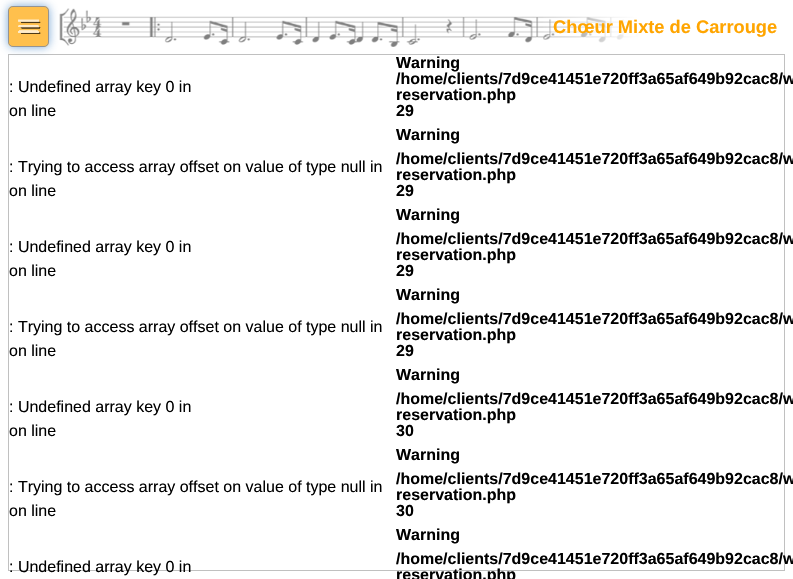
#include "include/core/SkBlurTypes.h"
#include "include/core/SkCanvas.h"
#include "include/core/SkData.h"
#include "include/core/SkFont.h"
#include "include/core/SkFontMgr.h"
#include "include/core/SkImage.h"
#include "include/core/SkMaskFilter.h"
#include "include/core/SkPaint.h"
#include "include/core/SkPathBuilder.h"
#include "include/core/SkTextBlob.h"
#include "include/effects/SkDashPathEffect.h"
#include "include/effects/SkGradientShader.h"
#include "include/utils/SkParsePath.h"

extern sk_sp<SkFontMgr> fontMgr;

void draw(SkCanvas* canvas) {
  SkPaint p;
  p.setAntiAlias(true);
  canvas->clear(SK_ColorWHITE);
  canvas->drawImageRect(SkImages::DeferredFromEncodedData(SkData::MakeFromFileName("images/1.png")), SkRect::MakeLTRB(59, 8, 639, 47), SkSamplingOptions());
  p.setStyle(SkPaint::kStroke_Style);
  p.setStrokeWidth(1);
  p.setColor(SkColorSetRGB(192, 192, 192));
  canvas->drawRect(SkRect::MakeLTRB(8.5f, 54.5f, 784.5f, 570.5f), p);
  p.setStyle(SkPaint::kFill_Style);
  p.setColor(SkColorSetARGB(179, 65, 131, 196));
  p.setMaskFilter(SkMaskFilter::MakeBlur(kNormal_SkBlurStyle, 5));
  canvas->drawRoundRect(SkRect::MakeLTRB(8, 6, 49, 47), 5, 5, p);
  p.setMaskFilter(nullptr);
  p.setColor(SkColorSetRGB(255, 192, 77));
  canvas->drawRoundRect(SkRect::MakeLTRB(8, 6, 49, 47), 5, 5, p);
  canvas->drawImageRect(SkImages::DeferredFromEncodedData(SkData::MakeFromFileName("images/2.png")), SkRect::MakeLTRB(18, 19, 41, 34), SkSamplingOptions());
  p.setStyle(SkPaint::kStroke_Style);
  p.setColor(SkColorSetRGB(148, 148, 148));
  canvas->drawRoundRect(SkRect::MakeLTRB(8.5f, 6.5f, 48.5f, 46.5f), 4.5f, 4.5f, p);
  p.setStyle(SkPaint::kFill_Style);
  {
    const SkColor colors[] = {SkColorSetARGB(0, 255, 255, 255), SK_ColorWHITE};
    const float stops[] = {0, 0.4f};
    const SkPoint ends[] = {{537, 27}, {793, 27}};
    p.setShader(SkGradientShader::MakeLinear(ends, colors, stops, 2, SkTileMode::kClamp));
    p.setAlpha(255);
  }
  canvas->drawRect(SkRect::MakeLTRB(543, 16, 639, 43), p);
  SkFont font1(fontMgr->matchFamilyStyle("Liberation Sans", SkFontStyle::Bold()), 18.25f);
  font1.setSubpixel(true);
  p.setShader(nullptr);
  p.setColor(SkColorSetRGB(255, 165, 0));
  canvas->drawString("Chœur Mixte de Carrouge", 553, 33, font1, p);
  SkFont font2(fontMgr->matchFamilyStyle("Liberation Sans", SkFontStyle::Bold()), 16);
  font2.setSubpixel(true);
  p.setColor(SK_ColorBLACK);
  canvas->drawString("Warning", 396, 68, font2, p);
  SkFont font3(fontMgr->matchFamilyStyle("Liberation Sans", SkFontStyle::Normal()), 16);
  font3.setSubpixel(true);
  canvas->drawString(": Undefined array key 0 in", 9, 92, font3, p);
  canvas->drawString("/home/clients/7d9ce41451e720ff3a65af649b92cac8/w", 396, 84, font2, p);
  canvas->drawString("reservation.php", 396, 100, font2, p);
  canvas->drawString("on line", 9, 116, font3, p);
  canvas->drawString("29", 396, 116, font2, p);
  canvas->drawString("Warning", 396, 140, font2, p);
  canvas->drawString(": Trying to access array offset on value of type null in", 9, 172, font3, p);
  canvas->drawString("/home/clients/7d9ce41451e720ff3a65af649b92cac8/w", 396, 164, font2, p);
  canvas->drawString("reservation.php", 396, 180, font2, p);
  canvas->drawString("on line", 9, 196, font3, p);
  canvas->drawString("29", 396, 196, font2, p);
  canvas->drawString("Warning", 396, 220, font2, p);
  canvas->drawString(": Undefined array key 0 in", 9, 252, font3, p);
  canvas->drawString("/home/clients/7d9ce41451e720ff3a65af649b92cac8/w", 396, 244, font2, p);
  canvas->drawString("reservation.php", 396, 260, font2, p);
  canvas->drawString("on line", 9, 276, font3, p);
  canvas->drawString("29", 396, 276, font2, p);
  canvas->drawString("Warning", 396, 300, font2, p);
  canvas->drawString(": Trying to access array offset on value of type null in", 9, 332, font3, p);
  canvas->drawString("/home/clients/7d9ce41451e720ff3a65af649b92cac8/w", 396, 324, font2, p);
  canvas->drawString("reservation.php", 396, 340, font2, p);
  canvas->drawString("on line", 9, 356, font3, p);
  canvas->drawString("29", 396, 356, font2, p);
  canvas->drawString("Warning", 396, 380, font2, p);
  canvas->drawString(": Undefined array key 0 in", 9, 412, font3, p);
  canvas->drawString("/home/clients/7d9ce41451e720ff3a65af649b92cac8/w", 396, 404, font2, p);
  canvas->drawString("reservation.php", 396, 420, font2, p);
  canvas->drawString("on line", 9, 436, font3, p);
  canvas->drawString("30", 396, 436, font2, p);
  canvas->drawString("Warning", 396, 460, font2, p);
  canvas->drawString(": Trying to access array offset on value of type null in", 9, 492, font3, p);
  canvas->drawString("/home/clients/7d9ce41451e720ff3a65af649b92cac8/w", 396, 484, font2, p);
  canvas->drawString("reservation.php", 396, 500, font2, p);
  canvas->drawString("on line", 9, 516, font3, p);
  canvas->drawString("30", 396, 516, font2, p);
  canvas->drawString("Warning", 396, 540, font2, p);
  canvas->drawString(": Undefined array key 0 in", 9, 572, font3, p);
  canvas->drawString("/home/clients/7d9ce41451e720ff3a65af649b92cac8/w", 396, 564, font2, p);
  canvas->drawString("reservation.php", 396, 580, font2, p);
}
